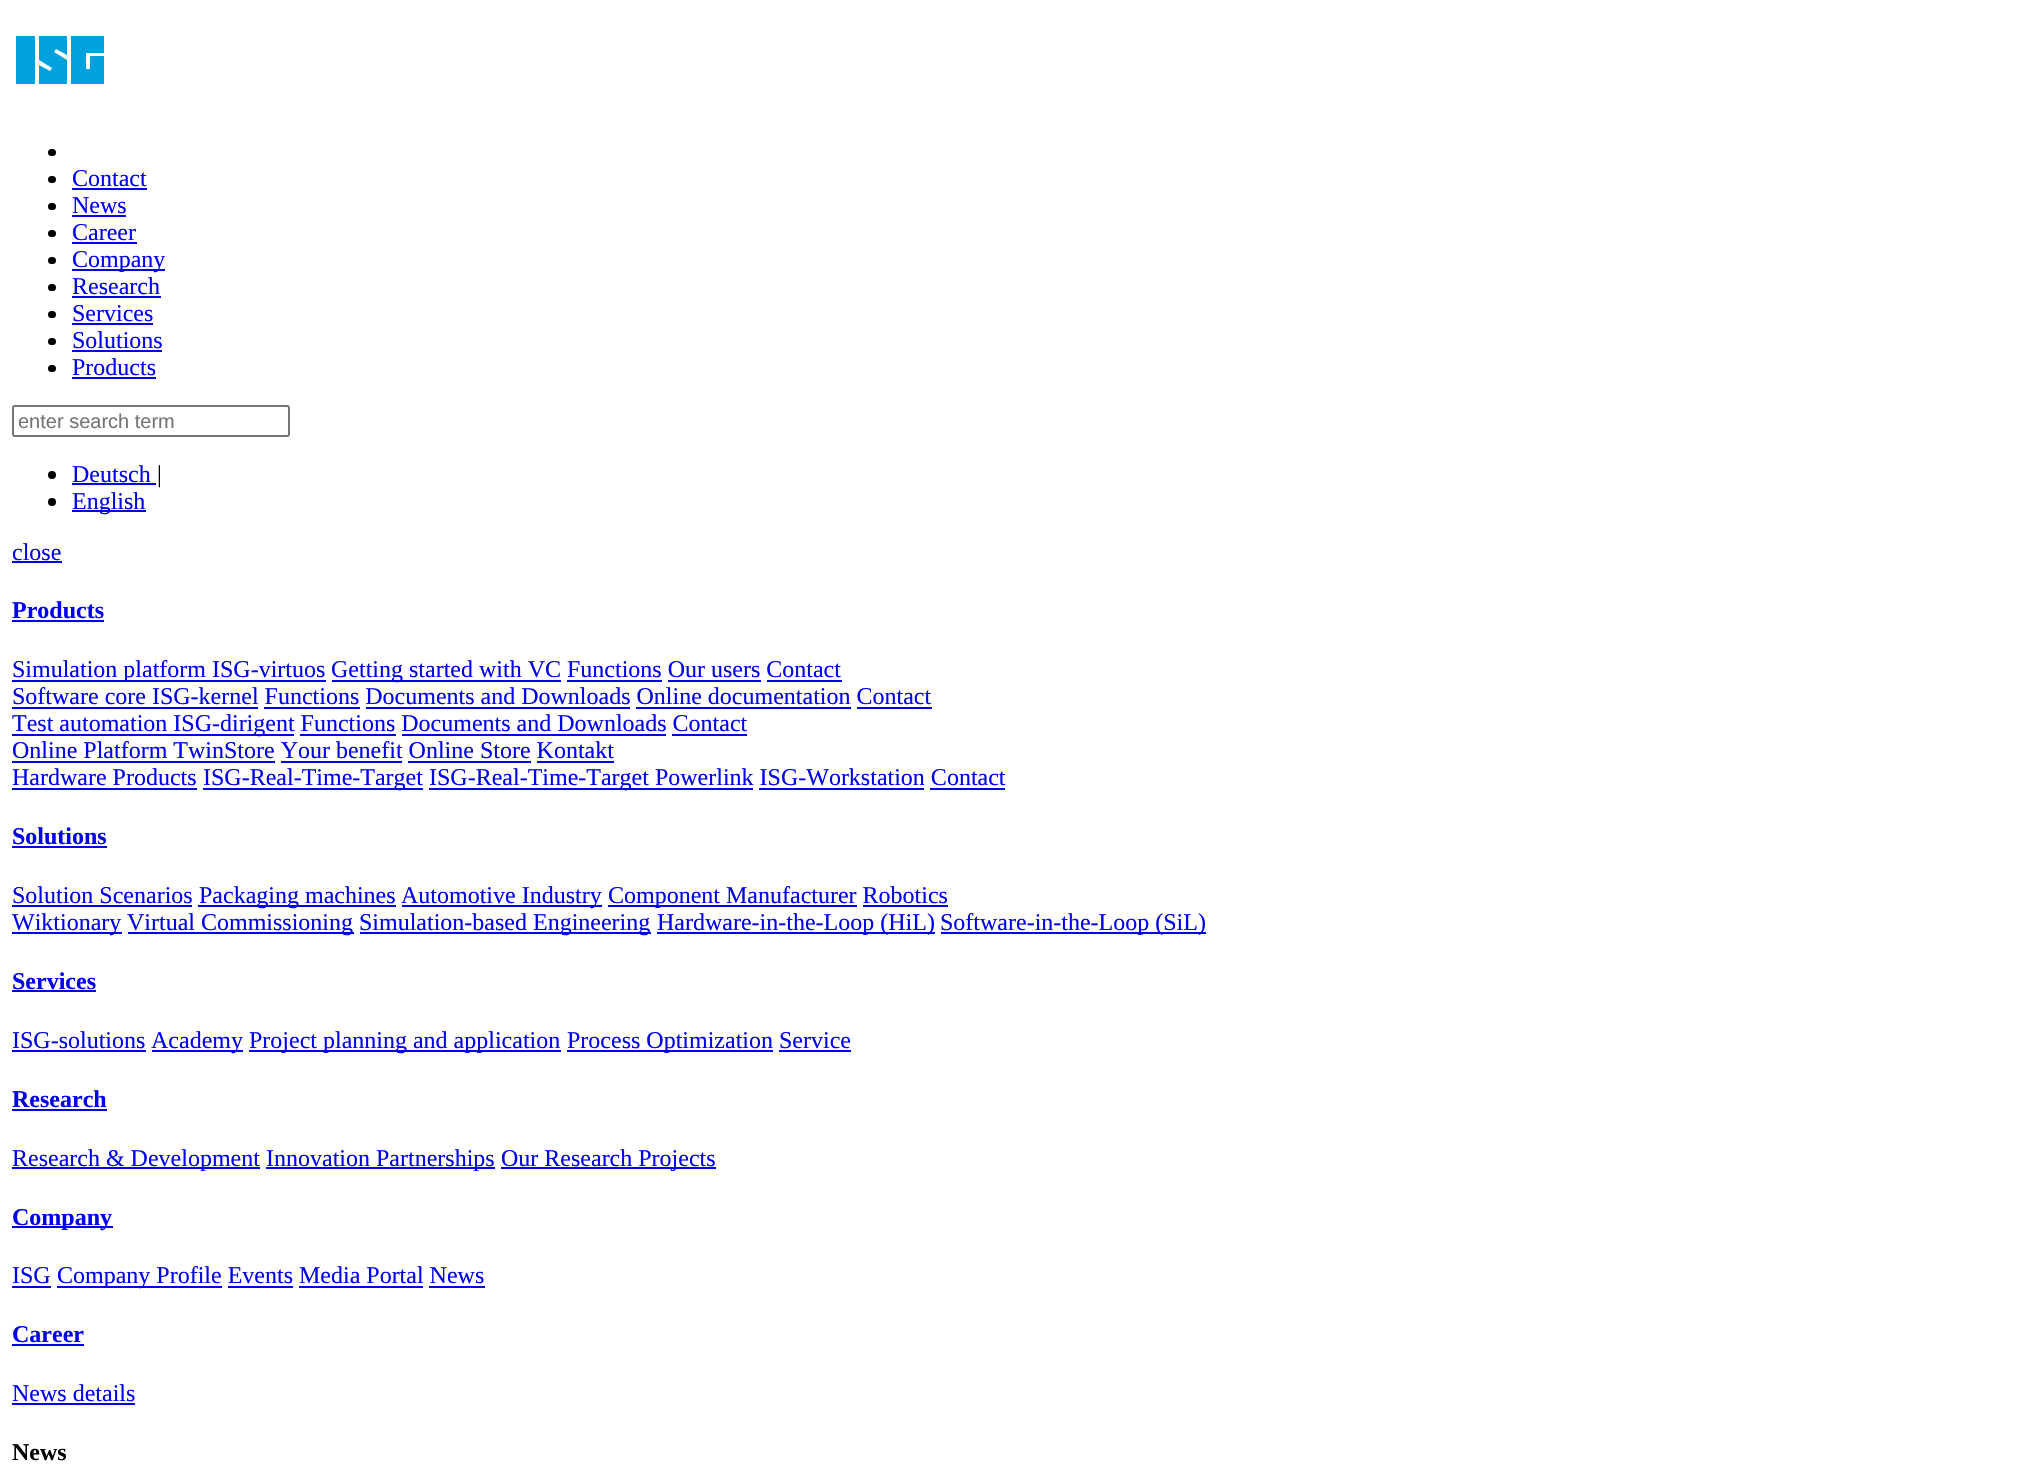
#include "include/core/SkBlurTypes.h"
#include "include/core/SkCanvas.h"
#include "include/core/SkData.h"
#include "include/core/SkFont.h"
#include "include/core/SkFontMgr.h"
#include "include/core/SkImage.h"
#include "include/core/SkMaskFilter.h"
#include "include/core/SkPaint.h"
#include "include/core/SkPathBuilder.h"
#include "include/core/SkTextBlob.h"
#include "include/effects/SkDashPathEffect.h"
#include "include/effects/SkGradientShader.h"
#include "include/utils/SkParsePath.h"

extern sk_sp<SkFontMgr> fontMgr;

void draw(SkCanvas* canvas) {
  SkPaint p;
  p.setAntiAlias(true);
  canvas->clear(SK_ColorWHITE);
  p.setColor(SkColorSetRGB(0, 161, 222));
  canvas->drawRect(SkRect::MakeLTRB(16, 36, 35, 84), p);
  canvas->drawPath(SkPathBuilder().moveTo(56, 49).lineTo(54, 52).lineTo(67, 60).lineTo(67, 84).lineTo(39, 84).lineTo(39, 65).lineTo(50, 71).lineTo(52, 68).lineTo(39, 60).lineTo(39, 36).lineTo(67, 36).lineTo(67, 55).close().detach(), p);
  canvas->drawPath(SkPathBuilder().moveTo(86, 53).lineTo(86, 69).lineTo(90, 69).lineTo(90, 56).lineTo(104, 56).lineTo(104, 84).lineTo(71, 84).lineTo(71, 36).lineTo(104, 36).lineTo(104, 53).close().detach(), p);
  p.setColor(SK_ColorBLACK);
  canvas->drawRoundRect(SkRect::MakeLTRB(48, 149, 56, 156), 3.5f, 3.5f, p);
  canvas->drawRoundRect(SkRect::MakeLTRB(48, 176, 56, 183), 3.5f, 3.5f, p);
  p.setColor(SkColorSetRGB(0, 0, 238));
  canvas->drawRect(SkRect::MakeLTRB(72, 188, 147, 190), p);
  p.setColor(SK_ColorBLACK);
  canvas->drawRoundRect(SkRect::MakeLTRB(48, 203, 56, 210), 3.5f, 3.5f, p);
  p.setColor(SkColorSetRGB(0, 0, 238));
  canvas->drawRect(SkRect::MakeLTRB(72, 215, 126, 217), p);
  p.setColor(SK_ColorBLACK);
  canvas->drawRoundRect(SkRect::MakeLTRB(48, 230, 56, 237), 3.5f, 3.5f, p);
  p.setColor(SkColorSetRGB(0, 0, 238));
  canvas->drawRect(SkRect::MakeLTRB(72, 242, 137, 244), p);
  p.setColor(SK_ColorBLACK);
  canvas->drawRoundRect(SkRect::MakeLTRB(48, 257, 56, 264), 3.5f, 3.5f, p);
  p.setColor(SkColorSetRGB(0, 0, 238));
  canvas->drawRect(SkRect::MakeLTRB(72, 269, 165, 271), p);
  p.setColor(SK_ColorBLACK);
  canvas->drawRoundRect(SkRect::MakeLTRB(48, 284, 56, 291), 3.5f, 3.5f, p);
  p.setColor(SkColorSetRGB(0, 0, 238));
  canvas->drawRect(SkRect::MakeLTRB(72, 296, 161, 298), p);
  p.setColor(SK_ColorBLACK);
  canvas->drawRoundRect(SkRect::MakeLTRB(48, 311, 56, 318), 3.5f, 3.5f, p);
  p.setColor(SkColorSetRGB(0, 0, 238));
  canvas->drawRect(SkRect::MakeLTRB(72, 323, 153, 325), p);
  p.setColor(SK_ColorBLACK);
  canvas->drawRoundRect(SkRect::MakeLTRB(48, 338, 56, 345), 3.5f, 3.5f, p);
  p.setColor(SkColorSetRGB(0, 0, 238));
  canvas->drawRect(SkRect::MakeLTRB(72, 350, 162, 352), p);
  p.setColor(SK_ColorBLACK);
  canvas->drawRoundRect(SkRect::MakeLTRB(48, 365, 56, 372), 3.5f, 3.5f, p);
  p.setColor(SkColorSetRGB(0, 0, 238));
  canvas->drawRect(SkRect::MakeLTRB(72, 377, 156, 379), p);
  p.setStyle(SkPaint::kStroke_Style);
  p.setStrokeWidth(2);
  p.setColor(SkColorSetRGB(118, 118, 118));
  canvas->drawRoundRect(SkRect::MakeLTRB(13, 406, 289, 436), 2, 2, p);
  p.setStyle(SkPaint::kFill_Style);
  p.setColor(SK_ColorBLACK);
  canvas->drawCircle(52, 475, 4, p);
  p.setColor(SkColorSetRGB(0, 0, 238));
  canvas->drawRect(SkRect::MakeLTRB(72, 483, 156, 485), p);
  p.setColor(SK_ColorBLACK);
  canvas->drawCircle(52, 502, 4, p);
  p.setColor(SkColorSetRGB(0, 0, 238));
  canvas->drawRect(SkRect::MakeLTRB(72, 510, 146, 512), p);
  canvas->drawRect(SkRect::MakeLTRB(12, 561, 62, 563), p);
  canvas->drawRect(SkRect::MakeLTRB(12, 620, 104, 622), p);
  canvas->drawRect(SkRect::MakeLTRB(12, 680, 326, 682), p);
  canvas->drawRect(SkRect::MakeLTRB(332, 680, 561, 682), p);
  canvas->drawRect(SkRect::MakeLTRB(567, 680, 662, 682), p);
  canvas->drawRect(SkRect::MakeLTRB(668, 680, 761, 682), p);
  canvas->drawRect(SkRect::MakeLTRB(767, 680, 842, 682), p);
  canvas->drawRect(SkRect::MakeLTRB(12, 707, 258, 709), p);
  canvas->drawRect(SkRect::MakeLTRB(264, 707, 360, 709), p);
  canvas->drawRect(SkRect::MakeLTRB(366, 707, 630, 709), p);
  canvas->drawRect(SkRect::MakeLTRB(636, 707, 851, 709), p);
  canvas->drawRect(SkRect::MakeLTRB(857, 707, 932, 709), p);
  canvas->drawRect(SkRect::MakeLTRB(12, 734, 294, 736), p);
  canvas->drawRect(SkRect::MakeLTRB(300, 734, 396, 736), p);
  canvas->drawRect(SkRect::MakeLTRB(402, 734, 666, 736), p);
  canvas->drawRect(SkRect::MakeLTRB(672, 734, 747, 736), p);
  canvas->drawRect(SkRect::MakeLTRB(12, 761, 275, 763), p);
  canvas->drawRect(SkRect::MakeLTRB(281, 761, 402, 763), p);
  canvas->drawRect(SkRect::MakeLTRB(408, 761, 531, 763), p);
  canvas->drawRect(SkRect::MakeLTRB(537, 761, 614, 763), p);
  canvas->drawRect(SkRect::MakeLTRB(12, 788, 197, 790), p);
  canvas->drawRect(SkRect::MakeLTRB(203, 788, 423, 790), p);
  canvas->drawRect(SkRect::MakeLTRB(429, 788, 753, 790), p);
  canvas->drawRect(SkRect::MakeLTRB(759, 788, 924, 790), p);
  canvas->drawRect(SkRect::MakeLTRB(930, 788, 1005, 790), p);
  canvas->drawRect(SkRect::MakeLTRB(12, 846, 107, 848), p);
  canvas->drawRect(SkRect::MakeLTRB(12, 905, 192, 907), p);
  canvas->drawRect(SkRect::MakeLTRB(198, 905, 396, 907), p);
  canvas->drawRect(SkRect::MakeLTRB(402, 905, 602, 907), p);
  canvas->drawRect(SkRect::MakeLTRB(608, 905, 857, 907), p);
  canvas->drawRect(SkRect::MakeLTRB(863, 905, 948, 907), p);
  canvas->drawRect(SkRect::MakeLTRB(12, 932, 122, 934), p);
  canvas->drawRect(SkRect::MakeLTRB(128, 932, 354, 934), p);
  canvas->drawRect(SkRect::MakeLTRB(360, 932, 651, 934), p);
  canvas->drawRect(SkRect::MakeLTRB(657, 932, 935, 934), p);
  canvas->drawRect(SkRect::MakeLTRB(941, 932, 1206, 934), p);
  canvas->drawRect(SkRect::MakeLTRB(12, 990, 96, 992), p);
  canvas->drawRect(SkRect::MakeLTRB(12, 1050, 146, 1052), p);
  canvas->drawRect(SkRect::MakeLTRB(152, 1050, 243, 1052), p);
  canvas->drawRect(SkRect::MakeLTRB(249, 1050, 561, 1052), p);
  canvas->drawRect(SkRect::MakeLTRB(567, 1050, 773, 1052), p);
  canvas->drawRect(SkRect::MakeLTRB(779, 1050, 851, 1052), p);
  canvas->drawRect(SkRect::MakeLTRB(12, 1109, 107, 1111), p);
  canvas->drawRect(SkRect::MakeLTRB(12, 1167, 260, 1169), p);
  canvas->drawRect(SkRect::MakeLTRB(266, 1167, 495, 1169), p);
  canvas->drawRect(SkRect::MakeLTRB(501, 1167, 716, 1169), p);
  canvas->drawRect(SkRect::MakeLTRB(12, 1226, 113, 1228), p);
  canvas->drawRect(SkRect::MakeLTRB(12, 1286, 51, 1288), p);
  canvas->drawRect(SkRect::MakeLTRB(57, 1286, 222, 1288), p);
  canvas->drawRect(SkRect::MakeLTRB(228, 1286, 293, 1288), p);
  canvas->drawRect(SkRect::MakeLTRB(299, 1286, 423, 1288), p);
  canvas->drawRect(SkRect::MakeLTRB(429, 1286, 485, 1288), p);
  canvas->drawRect(SkRect::MakeLTRB(12, 1344, 84, 1346), p);
  canvas->drawRect(SkRect::MakeLTRB(12, 1403, 135, 1405), p);
  SkFont font1(fontMgr->matchFamilyStyle("Liberation Serif", SkFontStyle::Normal()), 24);
  font1.setSubpixel(true);
  canvas->drawString("Contact", 72, 186, font1, p);
  canvas->drawString("News", 72, 213, font1, p);
  canvas->drawString("Career", 72, 240, font1, p);
  canvas->drawString("Company", 72, 267, font1, p);
  canvas->drawString("Research", 72, 294, font1, p);
  canvas->drawString("Services", 72, 321, font1, p);
  canvas->drawString("Solutions", 72, 348, font1, p);
  canvas->drawString("Products", 72, 375, font1, p);
  SkFont font2(fontMgr->matchFamilyStyle("Liberation Sans", SkFontStyle::Normal()), 20);
  font2.setSubpixel(true);
  p.setColor(SkColorSetRGB(117, 117, 117));
  canvas->drawString("enter search term", 18, 428, font2, p);
  p.setColor(SkColorSetRGB(0, 0, 238));
  canvas->drawString("Deutsch", 72, 482, font1, p);
  p.setColor(SK_ColorBLACK);
  canvas->drawString("|", 157, 482, font1, p);
  p.setColor(SkColorSetRGB(0, 0, 238));
  canvas->drawString("English", 72, 509, font1, p);
  canvas->drawString("close", 12, 560, font1, p);
  SkFont font3(fontMgr->matchFamilyStyle("Liberation Serif", SkFontStyle::Bold()), 24);
  font3.setSubpixel(true);
  canvas->drawString("Products", 12, 618, font3, p);
  canvas->drawString("Simulation platform ISG-virtuos", 12, 677, font1, p);
  canvas->drawString("Getting started with VC Functions Our users Contact", 331, 677, font1, p);
  canvas->drawString("Software core ISG-kernel Functions Documents and Downloads Online documentation Contact", 12, 704, font1, p);
  canvas->drawString("Test automation ISG-dirigent Functions Documents and Downloads Contact", 12, 731, font1, p);
  canvas->drawString("Online Platform TwinStore Your benefit Online Store Kontakt", 12, 758, font1, p);
  canvas->drawString("Hardware Products", 12, 785, font1, p);
  canvas->drawString("ISG-Real-Time-Target", 203, 785, font1, p);
  canvas->drawString("ISG-Real-Time-Target Powerlink ISG-Workstation Contact", 429, 785, font1, p);
  canvas->drawString("Solutions", 12, 844, font3, p);
  canvas->drawString("Solution Scenarios", 12, 903, font1, p);
  canvas->drawString("Packaging machines", 199, 903, font1, p);
  canvas->drawString("Automotive Industry", 401, 903, font1, p);
  canvas->drawString("Component Manufacturer Robotics", 608, 903, font1, p);
  canvas->drawString("Wiktionary", 12, 930, font1, p);
  canvas->drawString("Virtual Commissioning", 127, 930, font1, p);
  canvas->drawString("Simulation-based Engineering", 359, 930, font1, p);
  canvas->drawString("Hardware-in-the-Loop (HiL)", 657, 930, font1, p);
  canvas->drawString("Software-in-the-Loop (SiL)", 940, 930, font1, p);
  canvas->drawString("Services", 12, 989, font3, p);
  canvas->drawString("ISG-solutions", 12, 1048, font1, p);
  canvas->drawString("Academy", 151, 1048, font1, p);
  canvas->drawString("Project planning and application", 249, 1048, font1, p);
  canvas->drawString("Process Optimization Service", 567, 1048, font1, p);
  canvas->drawString("Research", 12, 1107, font3, p);
  canvas->drawString("Research & Development", 12, 1166, font1, p);
  canvas->drawString("Innovation Partnerships", 266, 1166, font1, p);
  canvas->drawString("Our Research Projects", 501, 1166, font1, p);
  canvas->drawString("Company", 12, 1225, font3, p);
  canvas->drawString("ISG", 12, 1283, font1, p);
  canvas->drawString("Company Profile Events Media Portal News", 57, 1283, font1, p);
  canvas->drawString("Career", 12, 1342, font3, p);
  canvas->drawString("News details", 12, 1401, font1, p);
  p.setColor(SK_ColorBLACK);
  canvas->drawString("News", 12, 1460, font3, p);
}
